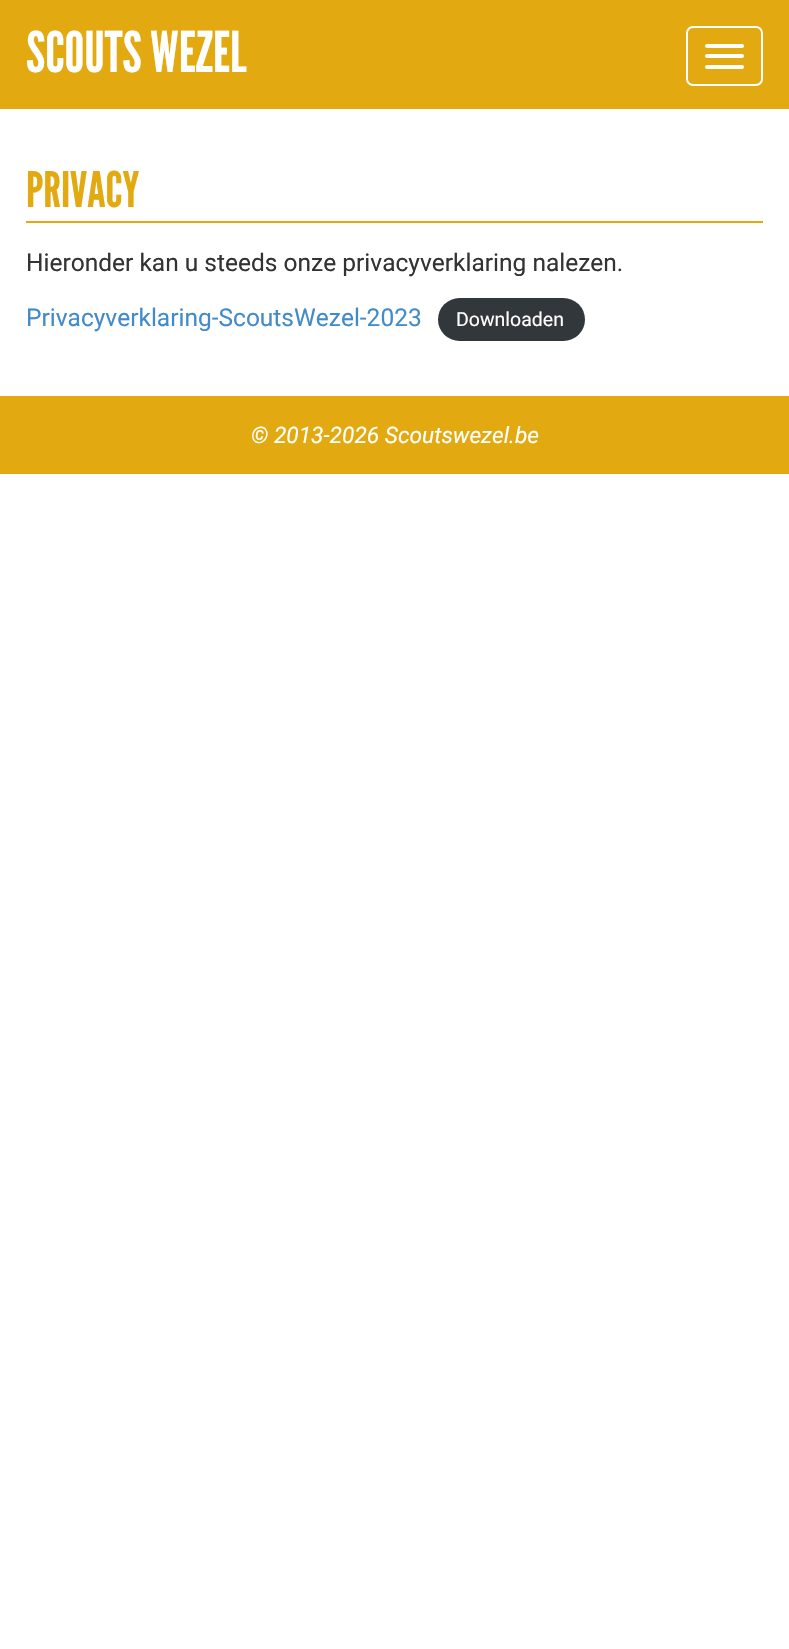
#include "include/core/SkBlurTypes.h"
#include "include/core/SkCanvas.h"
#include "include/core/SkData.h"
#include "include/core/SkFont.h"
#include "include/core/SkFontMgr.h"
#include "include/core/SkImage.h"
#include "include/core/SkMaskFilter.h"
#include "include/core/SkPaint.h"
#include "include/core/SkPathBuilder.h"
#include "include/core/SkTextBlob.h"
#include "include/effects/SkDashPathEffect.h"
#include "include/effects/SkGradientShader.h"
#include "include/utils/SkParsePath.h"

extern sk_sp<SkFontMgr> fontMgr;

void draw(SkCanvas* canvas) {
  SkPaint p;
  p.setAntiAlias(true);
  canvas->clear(SK_ColorWHITE);
  p.setColor(SkColorSetRGB(226, 169, 17));
  canvas->drawRect(SkRect::MakeLTRB(0, 0, 789, 109), p);
  p.setStyle(SkPaint::kStroke_Style);
  p.setStrokeWidth(2);
  p.setColor(SK_ColorWHITE);
  canvas->drawRoundRect(SkRect::MakeLTRB(687, 27, 762, 85), 6, 6, p);
  p.setStyle(SkPaint::kFill_Style);
  canvas->drawRoundRect(SkRect::MakeLTRB(705, 44, 744, 48), 2, 2, p);
  canvas->drawRoundRect(SkRect::MakeLTRB(705, 54, 744, 58), 2, 2, p);
  canvas->drawRoundRect(SkRect::MakeLTRB(705, 65, 744, 69), 2, 2, p);
  p.setColor(SkColorSetRGB(226, 169, 17));
  canvas->drawRect(SkRect::MakeLTRB(26, 221, 763, 223), p);
  p.setColor(SkColorSetRGB(50, 55, 60));
  canvas->drawRoundRect(SkRect::MakeLTRB(438, 298, 585, 341), 21.5f, 21.5f, p);
  p.setColor(SkColorSetRGB(226, 169, 17));
  canvas->drawRect(SkRect::MakeLTRB(0, 396, 789, 474), p);
  SkFont font1(fontMgr->matchFamilyStyle("League Gothic", SkFontStyle::Normal()), 56);
  font1.setSubpixel(true);
  p.setColor(SK_ColorWHITE);
  canvas->drawString("SCOUTS WEZEL", 26, 72, font1, p);
  SkFont font2(fontMgr->matchFamilyStyle("League Gothic", SkFontStyle::Normal()), 49);
  font2.setSubpixel(true);
  p.setColor(SkColorSetRGB(226, 169, 17));
  canvas->drawString("PRIVACY", 26, 207, font2, p);
  SkFont font3(fontMgr->matchFamilyStyle("Roboto", SkFontStyle::Normal()), 24.5f);
  font3.setSubpixel(true);
  p.setColor(SkColorSetRGB(51, 51, 51));
  canvas->drawString("Hieronder kan u steeds onze privacyverklaring nalezen.", 26, 271, font3, p);
  p.setColor(SkColorSetRGB(66, 139, 202));
  canvas->drawString("Privacyverklaring-ScoutsWezel-2023", 26, 326, font3, p);
  SkFont font4(fontMgr->matchFamilyStyle("Roboto", SkFontStyle::Normal()), 19.5f);
  font4.setSubpixel(true);
  p.setColor(SK_ColorWHITE);
  canvas->drawString("Downloaden", 456, 326, font4, p);
  SkFont font5(fontMgr->matchFamilyStyle("Roboto", SkFontStyle::Italic()), 22.75f);
  font5.setSubpixel(true);
  canvas->drawString("© 2013-2026 Scoutswezel.be", 251, 443, font5, p);
}
